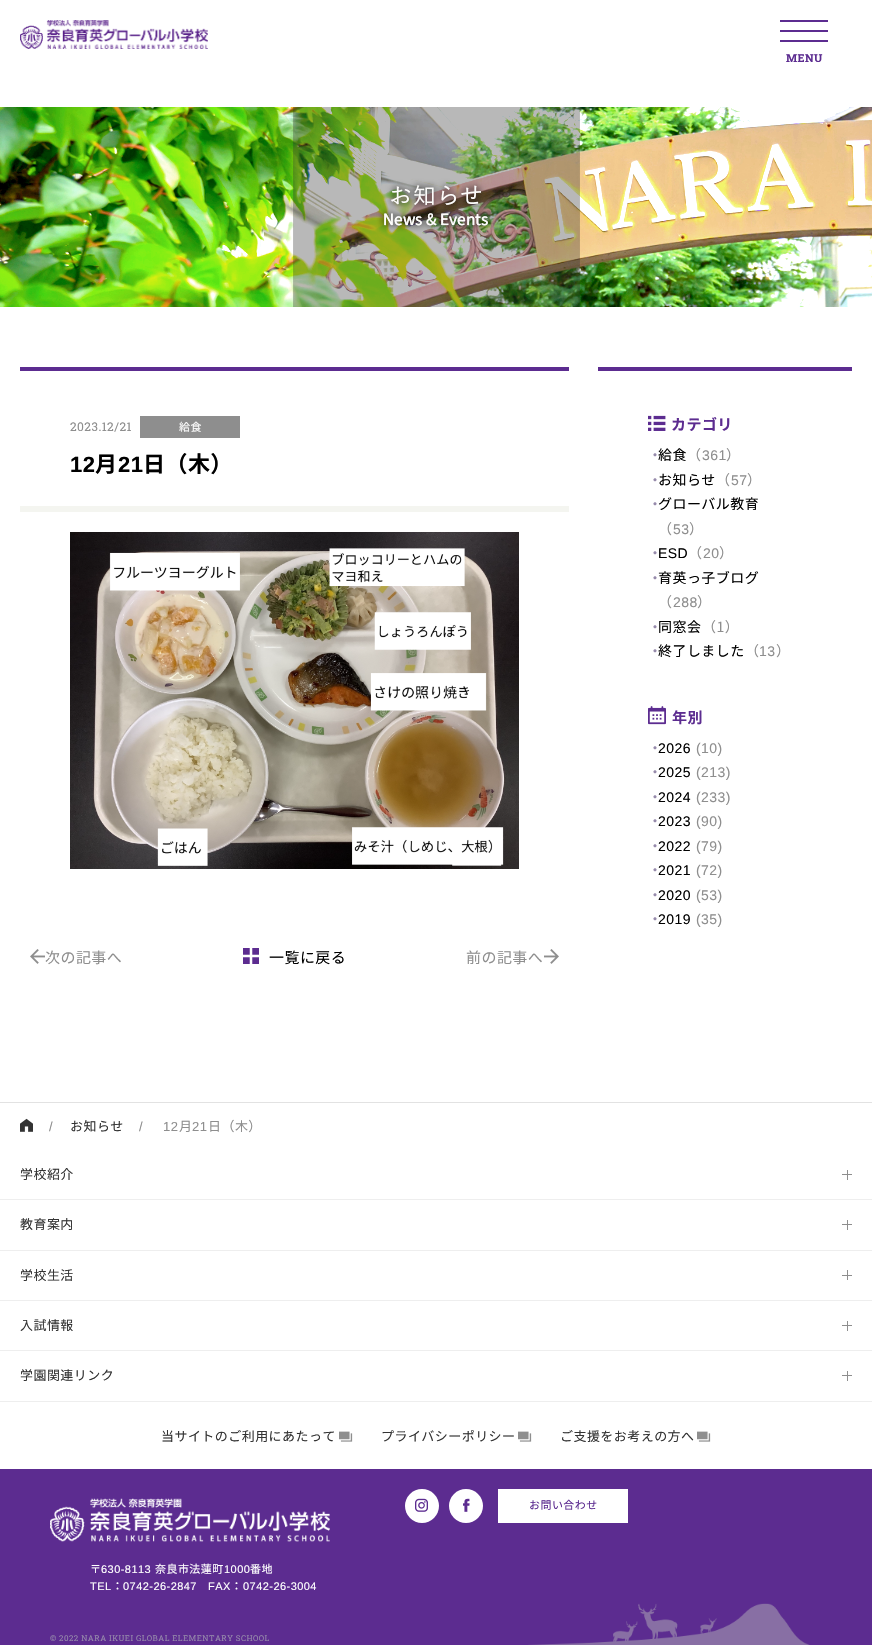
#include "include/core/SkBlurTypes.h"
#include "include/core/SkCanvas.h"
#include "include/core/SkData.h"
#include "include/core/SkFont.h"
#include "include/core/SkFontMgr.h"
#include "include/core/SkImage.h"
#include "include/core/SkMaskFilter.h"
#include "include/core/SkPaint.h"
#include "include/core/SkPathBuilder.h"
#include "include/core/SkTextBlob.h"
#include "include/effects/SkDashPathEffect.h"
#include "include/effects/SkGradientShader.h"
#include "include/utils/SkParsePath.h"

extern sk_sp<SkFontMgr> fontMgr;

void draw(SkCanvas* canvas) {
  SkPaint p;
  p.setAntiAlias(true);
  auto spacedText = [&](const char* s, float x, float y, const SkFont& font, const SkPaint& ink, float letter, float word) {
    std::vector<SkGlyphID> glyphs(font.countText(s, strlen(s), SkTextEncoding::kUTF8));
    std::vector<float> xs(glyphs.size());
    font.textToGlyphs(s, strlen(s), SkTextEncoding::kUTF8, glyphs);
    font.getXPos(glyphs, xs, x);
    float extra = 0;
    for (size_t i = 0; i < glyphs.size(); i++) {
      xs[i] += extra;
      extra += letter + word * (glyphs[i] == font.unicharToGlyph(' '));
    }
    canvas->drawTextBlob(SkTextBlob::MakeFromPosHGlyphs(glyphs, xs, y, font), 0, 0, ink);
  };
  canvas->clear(SK_ColorWHITE);
  canvas->drawImageRect(SkImages::DeferredFromEncodedData(SkData::MakeFromFileName("images/1.png")), SkRect::MakeLTRB(20, 20, 208, 49), SkSamplingOptions());
  p.setColor(SkColorSetRGB(92, 44, 144));
  canvas->drawRect(SkRect::MakeLTRB(780, 20, 828, 22), p);
  canvas->drawRect(SkRect::MakeLTRB(780, 30, 828, 32), p);
  canvas->drawRect(SkRect::MakeLTRB(780, 40, 828, 42), p);
  canvas->drawImageRect(SkImages::DeferredFromEncodedData(SkData::MakeFromFileName("images/2.png")), SkRect::MakeLTRB(0, 107, 872, 307), SkSamplingOptions());
  canvas->drawRect(SkRect::MakeLTRB(20, 367, 569, 371), p);
  p.setColor(SkColorSetRGB(142, 142, 142));
  canvas->drawRect(SkRect::MakeLTRB(140, 416, 240, 438), p);
  p.setColor(SkColorSetRGB(244, 245, 240));
  canvas->drawRect(SkRect::MakeLTRB(20, 506, 569, 512), p);
  canvas->drawImageRect(SkImages::DeferredFromEncodedData(SkData::MakeFromFileName("images/3.png")), SkRect::MakeLTRB(70, 532, 519, 869), SkSamplingOptions());
  canvas->drawImageRect(SkImages::DeferredFromEncodedData(SkData::MakeFromFileName("images/4.png")), SkRect::MakeLTRB(30, 949, 45, 964), SkSamplingOptions());
  canvas->drawImageRect(SkImages::DeferredFromEncodedData(SkData::MakeFromFileName("images/5.png")), SkRect::MakeLTRB(243, 948, 259, 964), SkSamplingOptions());
  canvas->drawImageRect(SkImages::DeferredFromEncodedData(SkData::MakeFromFileName("images/6.png")), SkRect::MakeLTRB(544, 949, 559, 964), SkSamplingOptions());
  p.setColor(SkColorSetRGB(92, 44, 144));
  canvas->drawRect(SkRect::MakeLTRB(598, 367, 852, 371), p);
  canvas->drawImageRect(SkImages::DeferredFromEncodedData(SkData::MakeFromFileName("images/7.png")), SkRect::MakeLTRB(648, 415, 666, 431), SkSamplingOptions());
  canvas->drawImageRect(SkImages::DeferredFromEncodedData(SkData::MakeFromFileName("images/8.png")), SkRect::MakeLTRB(648, 706, 666, 725), SkSamplingOptions());
  p.setColor(SkColorSetRGB(226, 226, 226));
  canvas->drawRect(SkRect::MakeLTRB(0, 1102, 872, 1103), p);
  canvas->drawImageRect(SkImages::DeferredFromEncodedData(SkData::MakeFromFileName("images/9.png")), SkRect::MakeLTRB(20, 1118, 33, 1132), SkSamplingOptions());
  p.setColor(SkColorSetRGB(238, 238, 238));
  canvas->drawRect(SkRect::MakeLTRB(0, 1199, 872, 1200), p);
  p.setColor(SkColorSetRGB(142, 142, 142));
  canvas->drawRect(SkRect::MakeLTRB(842, 1174, 852, 1175), p);
  canvas->drawRect(SkRect::MakeLTRB(847, 1170, 848, 1180), p);
  p.setColor(SkColorSetRGB(238, 238, 238));
  canvas->drawRect(SkRect::MakeLTRB(0, 1250, 872, 1251), p);
  p.setColor(SkColorSetRGB(142, 142, 142));
  canvas->drawRect(SkRect::MakeLTRB(842, 1224, 852, 1225), p);
  canvas->drawRect(SkRect::MakeLTRB(847, 1220, 848, 1230), p);
  p.setColor(SkColorSetRGB(238, 238, 238));
  canvas->drawRect(SkRect::MakeLTRB(0, 1300, 872, 1301), p);
  p.setColor(SkColorSetRGB(142, 142, 142));
  canvas->drawRect(SkRect::MakeLTRB(842, 1275, 852, 1276), p);
  canvas->drawRect(SkRect::MakeLTRB(847, 1270, 848, 1280), p);
  p.setColor(SkColorSetRGB(238, 238, 238));
  canvas->drawRect(SkRect::MakeLTRB(0, 1350, 872, 1351), p);
  p.setColor(SkColorSetRGB(142, 142, 142));
  canvas->drawRect(SkRect::MakeLTRB(842, 1325, 852, 1326), p);
  canvas->drawRect(SkRect::MakeLTRB(847, 1321, 848, 1331), p);
  p.setColor(SkColorSetRGB(238, 238, 238));
  canvas->drawRect(SkRect::MakeLTRB(0, 1401, 872, 1402), p);
  p.setColor(SkColorSetRGB(142, 142, 142));
  canvas->drawRect(SkRect::MakeLTRB(842, 1375, 852, 1376), p);
  canvas->drawRect(SkRect::MakeLTRB(847, 1371, 848, 1381), p);
  canvas->drawImageRect(SkImages::DeferredFromEncodedData(SkData::MakeFromFileName("images/10.png")), SkRect::MakeLTRB(339, 1431, 353, 1442), SkSamplingOptions());
  canvas->drawImageRect(SkImages::DeferredFromEncodedData(SkData::MakeFromFileName("images/10.png")), SkRect::MakeLTRB(518, 1431, 532, 1442), SkSamplingOptions());
  canvas->drawImageRect(SkImages::DeferredFromEncodedData(SkData::MakeFromFileName("images/10.png")), SkRect::MakeLTRB(697, 1431, 711, 1442), SkSamplingOptions());
  p.setColor(SkColorSetRGB(92, 44, 144));
  canvas->drawRect(SkRect::MakeLTRB(0, 1469, 872, 1645), p);
  canvas->drawImageRect(SkImages::DeferredFromEncodedData(SkData::MakeFromFileName("images/11.png")), SkRect::MakeLTRB(528, 1603, 810, 1645), SkSamplingOptions());
  p.setColor(SK_ColorWHITE);
  canvas->drawCircle(422, 1506, 17, p);
  canvas->drawImageRect(SkImages::DeferredFromEncodedData(SkData::MakeFromFileName("images/12.png")), SkRect::MakeLTRB(415, 1498, 428, 1512), SkSamplingOptions());
  canvas->drawCircle(466, 1506, 17, p);
  canvas->drawImageRect(SkImages::DeferredFromEncodedData(SkData::MakeFromFileName("images/13.png")), SkRect::MakeLTRB(463, 1498, 470, 1512), SkSamplingOptions());
  canvas->drawRect(SkRect::MakeLTRB(498, 1489, 628, 1523), p);
  canvas->drawImageRect(SkImages::DeferredFromEncodedData(SkData::MakeFromFileName("images/14.png")), SkRect::MakeLTRB(50, 1498, 330, 1542), SkSamplingOptions());
  SkFont font1(fontMgr->matchFamilyStyle("Roboto Slab", SkFontStyle::Bold()), 11);
  font1.setSubpixel(true);
  p.setColor(SkColorSetRGB(92, 44, 144));
  spacedText("MENU", 786, 62, font1, p, 0.45f, 0);
  SkFont font2(fontMgr->matchFamilyStyle("Roboto Slab", SkFontStyle::Normal()), 12);
  font2.setSubpixel(true);
  p.setColor(SkColorSetRGB(142, 142, 142));
  spacedText("2023.12/21", 70, 431, font2, p, 0.45f, 0);
  SkFont font3(fontMgr->matchFamilyStyle("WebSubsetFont", SkFontStyle::Normal()), 11);
  font3.setSubpixel(true);
  p.setColor(SK_ColorWHITE);
  spacedText("給食", 179, 431, font3, p, 0.45f, 0);
  SkFont font4(fontMgr->matchFamilyStyle("Liberation Sans", SkFontStyle::Bold()), 22);
  font4.setSubpixel(true);
  p.setColor(SK_ColorBLACK);
  spacedText("12", 70, 472, font4, p, 0.45f, 0);
  SkFont font5(fontMgr->matchFamilyStyle("WebSubsetFont", SkFontStyle::Bold()), 22);
  font5.setSubpixel(true);
  spacedText("月", 95, 472, font5, p, 0.45f, 0);
  spacedText("21", 118, 472, font4, p, 0.45f, 0);
  spacedText("日（木）", 143, 472, font5, p, 0.45f, 0);
  SkFont font6(fontMgr->matchFamilyStyle("WebSubsetFont", SkFontStyle::Normal()), 15);
  font6.setSubpixel(true);
  p.setColor(SkColorSetRGB(142, 142, 142));
  spacedText("次の記事へ", 45, 963, font6, p, 0.45f, 0);
  p.setColor(SK_ColorBLACK);
  spacedText("一覧に戻る", 269, 963, font6, p, 0.45f, 0);
  p.setColor(SkColorSetRGB(142, 142, 142));
  spacedText("前の記事へ", 466, 963, font6, p, 0.45f, 0);
  SkFont font7(fontMgr->matchFamilyStyle("WebSubsetFont", SkFontStyle::Bold()), 15);
  font7.setSubpixel(true);
  p.setColor(SkColorSetRGB(92, 44, 144));
  spacedText("カテゴリ", 671, 430, font7, p, 0.45f, 0);
  SkFont font8(fontMgr->matchFamilyStyle("Noto Sans JP", SkFontStyle::Normal()), 14);
  font8.setSubpixel(true);
  p.setColor(SkColorSetRGB(150, 138, 171));
  spacedText("・", 648, 460, font8, p, 0.45f, 0);
  SkFont font9(fontMgr->matchFamilyStyle("WebSubsetFont", SkFontStyle::Normal()), 14);
  font9.setSubpixel(true);
  p.setColor(SK_ColorBLACK);
  spacedText("給食", 658, 460, font9, p, 0.45f, 0);
  p.setColor(SkColorSetRGB(142, 142, 142));
  spacedText("（", 687, 460, font9, p, 0.45f, 0);
  SkFont font10(fontMgr->matchFamilyStyle("Liberation Sans", SkFontStyle::Normal()), 14);
  font10.setSubpixel(true);
  spacedText("361", 702, 460, font10, p, 0.45f, 0);
  spacedText("）", 726, 460, font9, p, 0.45f, 0);
  p.setColor(SkColorSetRGB(150, 138, 171));
  spacedText("・", 648, 485, font8, p, 0.45f, 0);
  p.setColor(SK_ColorBLACK);
  spacedText("お知らせ", 658, 485, font9, p, 0.45f, 0);
  p.setColor(SkColorSetRGB(142, 142, 142));
  spacedText("（", 716, 485, font9, p, 0.45f, 0);
  spacedText("57", 731, 485, font10, p, 0.45f, 0);
  spacedText("）", 747, 485, font9, p, 0.45f, 0);
  p.setColor(SkColorSetRGB(150, 138, 171));
  spacedText("・", 648, 509, font8, p, 0.45f, 0);
  p.setColor(SK_ColorBLACK);
  spacedText("グローバル教育", 658, 509, font9, p, 0.45f, 0);
  p.setColor(SkColorSetRGB(142, 142, 142));
  spacedText("（", 658, 534, font9, p, 0.45f, 0);
  spacedText("53", 673, 534, font10, p, 0.45f, 0);
  spacedText("）", 689, 534, font9, p, 0.45f, 0);
  p.setColor(SkColorSetRGB(150, 138, 171));
  spacedText("・", 648, 558, font8, p, 0.45f, 0);
  p.setColor(SK_ColorBLACK);
  spacedText("ESD", 658, 558, font10, p, 0.45f, 0);
  p.setColor(SkColorSetRGB(142, 142, 142));
  spacedText("（", 688, 558, font9, p, 0.45f, 0);
  spacedText("20", 703, 558, font10, p, 0.45f, 0);
  spacedText("）", 719, 558, font9, p, 0.45f, 0);
  p.setColor(SkColorSetRGB(150, 138, 171));
  spacedText("・", 648, 583, font8, p, 0.45f, 0);
  p.setColor(SK_ColorBLACK);
  spacedText("育英っ子ブログ", 658, 583, font9, p, 0.45f, 0);
  p.setColor(SkColorSetRGB(142, 142, 142));
  spacedText("（", 658, 607, font9, p, 0.45f, 0);
  spacedText("288", 673, 607, font10, p, 0.45f, 0);
  spacedText("）", 697, 607, font9, p, 0.45f, 0);
  p.setColor(SkColorSetRGB(150, 138, 171));
  spacedText("・", 648, 632, font8, p, 0.45f, 0);
  p.setColor(SK_ColorBLACK);
  spacedText("同窓会", 658, 632, font9, p, 0.45f, 0);
  p.setColor(SkColorSetRGB(142, 142, 142));
  spacedText("（1）", 702, 632, font9, p, 0.45f, 0);
  p.setColor(SkColorSetRGB(150, 138, 171));
  spacedText("・", 648, 656, font8, p, 0.45f, 0);
  p.setColor(SK_ColorBLACK);
  spacedText("終了しました", 658, 656, font9, p, 0.45f, 0);
  p.setColor(SkColorSetRGB(142, 142, 142));
  spacedText("（", 745, 656, font9, p, 0.45f, 0);
  spacedText("13", 759, 656, font10, p, 0.45f, 0);
  spacedText("）", 776, 656, font9, p, 0.45f, 0);
  p.setColor(SkColorSetRGB(92, 44, 144));
  spacedText("年別", 672, 723, font7, p, 0.45f, 0);
  p.setColor(SkColorSetRGB(150, 138, 171));
  spacedText("・", 648, 753, font8, p, 0.45f, 0);
  p.setColor(SK_ColorBLACK);
  spacedText("2026", 658, 753, font10, p, 0.45f, 0);
  p.setColor(SkColorSetRGB(142, 142, 142));
  spacedText("(10)", 696, 753, font10, p, 0.45f, 0);
  p.setColor(SkColorSetRGB(150, 138, 171));
  spacedText("・", 648, 777, font8, p, 0.45f, 0);
  p.setColor(SK_ColorBLACK);
  spacedText("2025", 658, 777, font10, p, 0.45f, 0);
  p.setColor(SkColorSetRGB(142, 142, 142));
  spacedText("(213)", 696, 777, font10, p, 0.45f, 0);
  p.setColor(SkColorSetRGB(150, 138, 171));
  spacedText("・", 648, 802, font8, p, 0.45f, 0);
  p.setColor(SK_ColorBLACK);
  spacedText("2024", 658, 802, font10, p, 0.45f, 0);
  p.setColor(SkColorSetRGB(142, 142, 142));
  spacedText("(233)", 696, 802, font10, p, 0.45f, 0);
  p.setColor(SkColorSetRGB(150, 138, 171));
  spacedText("・", 648, 826, font8, p, 0.45f, 0);
  p.setColor(SK_ColorBLACK);
  spacedText("2023", 658, 826, font10, p, 0.45f, 0);
  p.setColor(SkColorSetRGB(142, 142, 142));
  spacedText("(90)", 696, 826, font10, p, 0.45f, 0);
  p.setColor(SkColorSetRGB(150, 138, 171));
  spacedText("・", 648, 851, font8, p, 0.45f, 0);
  p.setColor(SK_ColorBLACK);
  spacedText("2022", 658, 851, font10, p, 0.45f, 0);
  p.setColor(SkColorSetRGB(142, 142, 142));
  spacedText("(79)", 696, 851, font10, p, 0.45f, 0);
  p.setColor(SkColorSetRGB(150, 138, 171));
  spacedText("・", 648, 875, font8, p, 0.45f, 0);
  p.setColor(SK_ColorBLACK);
  spacedText("2021", 658, 875, font10, p, 0.45f, 0);
  p.setColor(SkColorSetRGB(142, 142, 142));
  spacedText("(72)", 696, 875, font10, p, 0.45f, 0);
  p.setColor(SkColorSetRGB(150, 138, 171));
  spacedText("・", 648, 900, font8, p, 0.45f, 0);
  p.setColor(SK_ColorBLACK);
  spacedText("2020", 658, 900, font10, p, 0.45f, 0);
  p.setColor(SkColorSetRGB(142, 142, 142));
  spacedText("(53)", 696, 900, font10, p, 0.45f, 0);
  p.setColor(SkColorSetRGB(150, 138, 171));
  spacedText("・", 648, 924, font8, p, 0.45f, 0);
  p.setColor(SK_ColorBLACK);
  spacedText("2019", 658, 924, font10, p, 0.45f, 0);
  p.setColor(SkColorSetRGB(142, 142, 142));
  spacedText("(35)", 696, 924, font10, p, 0.45f, 0);
  SkFont font11(fontMgr->matchFamilyStyle("Liberation Sans", SkFontStyle::Normal()), 13);
  font11.setSubpixel(true);
  spacedText("/", 49, 1131, font11, p, 0.45f, 0);
  SkFont font12(fontMgr->matchFamilyStyle("WebSubsetFont", SkFontStyle::Normal()), 13);
  font12.setSubpixel(true);
  p.setColor(SkColorSetRGB(51, 51, 51));
  spacedText("お知らせ", 70, 1131, font12, p, 0.45f, 0);
  p.setColor(SkColorSetRGB(142, 142, 142));
  spacedText("/", 139, 1131, font11, p, 0.45f, 0);
  spacedText("12", 163, 1131, font11, p, 0.45f, 0);
  spacedText("月", 179, 1131, font12, p, 0.45f, 0);
  spacedText("21", 192, 1131, font11, p, 0.45f, 0);
  spacedText("日（木）", 208, 1131, font12, p, 0.45f, 0);
  p.setColor(SkColorSetRGB(51, 51, 51));
  spacedText("学校紹介", 20, 1179, font12, p, 0.45f, 0);
  spacedText("教育案内", 20, 1229, font12, p, 0.45f, 0);
  spacedText("学校生活", 20, 1280, font12, p, 0.45f, 0);
  spacedText("入試情報", 20, 1330, font12, p, 0.45f, 0);
  spacedText("学園関連リンク", 20, 1380, font12, p, 0.45f, 0);
  spacedText("当サイトのご利用にあたって", 161, 1441, font12, p, 0.45f, 0);
  spacedText("プライバシーポリシー", 381, 1441, font12, p, 0.45f, 0);
  spacedText("ご支援をお考えの方へ", 560, 1441, font12, p, 0.45f, 0);
  p.setColor(SkColorSetRGB(92, 44, 144));
  spacedText("お問い合わせ", 529, 1509, font3, p, 0.45f, 0);
  p.setColor(SK_ColorWHITE);
  spacedText("〒", 90, 1573, font3, p, 0.45f, 0);
  SkFont font13(fontMgr->matchFamilyStyle("Liberation Sans", SkFontStyle::Normal()), 11);
  font13.setSubpixel(true);
  spacedText("630-8113", 101, 1573, font13, p, 0.45f, 0);
  spacedText("奈良市法蓮町", 155, 1573, font3, p, 0.45f, 0);
  spacedText("1000", 224, 1573, font13, p, 0.45f, 0);
  spacedText("番地", 250, 1573, font3, p, 0.45f, 0);
  spacedText("TEL", 90, 1590, font13, p, 0.45f, 0);
  spacedText("：", 112, 1590, font3, p, 0.45f, 0);
  spacedText("0742-26-2847", 123, 1590, font13, p, 0.45f, 0);
  spacedText("FAX", 208, 1590, font13, p, 0.45f, 0);
  spacedText("：", 231, 1590, font3, p, 0.45f, 0);
  spacedText("0742-26-3004", 243, 1590, font13, p, 0.45f, 0);
  SkFont font14(fontMgr->matchFamilyStyle("Roboto Slab", SkFontStyle::Normal()), 8);
  font14.setSubpixel(true);
  p.setColor(SkColorSetRGB(150, 138, 171));
  spacedText("© 2022 NARA IKUEI GLOBAL ELEMENTARY SCHOOL", 50, 1641, font14, p, 0.45f, 0);
}
